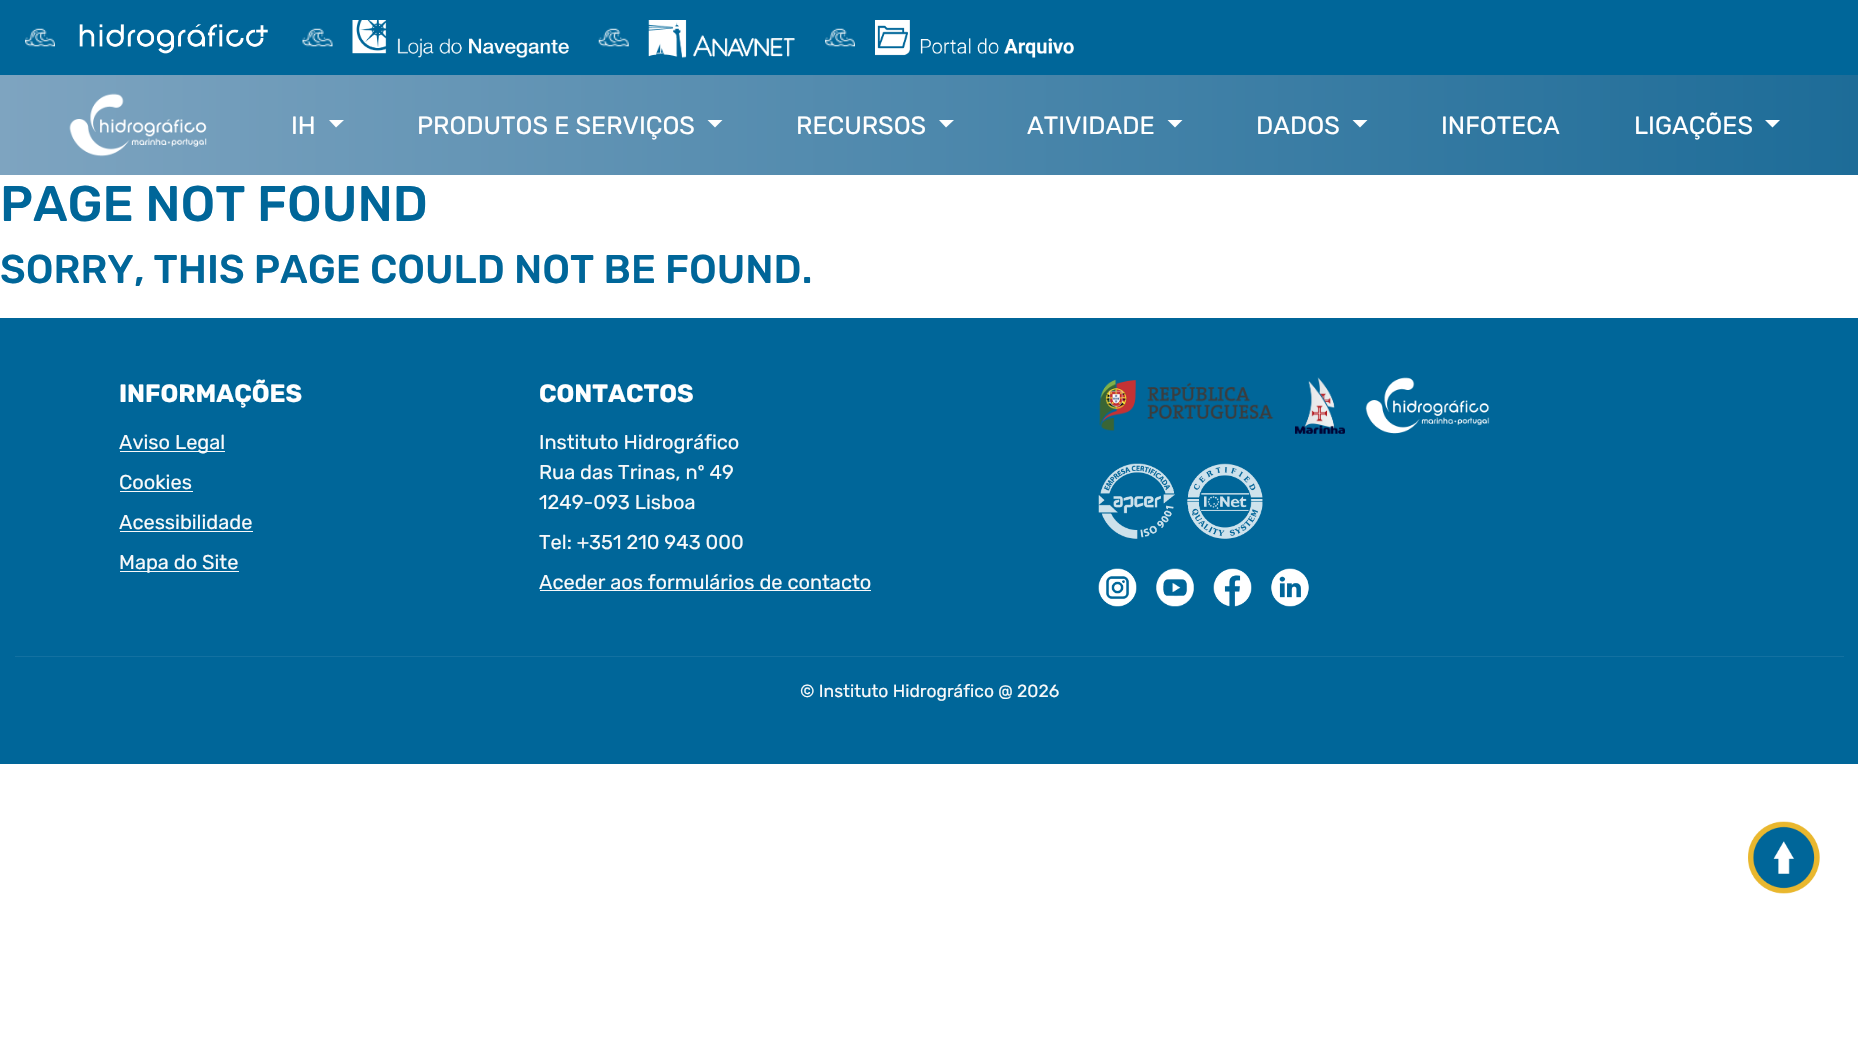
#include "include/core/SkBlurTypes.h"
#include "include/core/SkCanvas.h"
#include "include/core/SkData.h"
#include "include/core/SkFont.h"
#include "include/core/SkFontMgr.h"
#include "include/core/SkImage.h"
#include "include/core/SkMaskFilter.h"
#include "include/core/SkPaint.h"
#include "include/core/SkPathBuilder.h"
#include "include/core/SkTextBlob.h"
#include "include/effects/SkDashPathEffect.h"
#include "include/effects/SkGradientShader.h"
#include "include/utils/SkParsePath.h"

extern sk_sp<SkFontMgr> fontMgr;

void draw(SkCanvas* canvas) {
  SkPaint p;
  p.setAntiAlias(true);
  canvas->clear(SK_ColorWHITE);
  p.setColor(SkColorSetRGB(0, 102, 153));
  canvas->drawRect(SkRect::MakeLTRB(0, 0, 1858, 75), p);
  canvas->drawImageRect(SkImages::DeferredFromEncodedData(SkData::MakeFromFileName("images/1.png")), SkRect::MakeLTRB(25, 28, 55, 47), SkSamplingOptions());
  canvas->drawImageRect(SkImages::DeferredFromEncodedData(SkData::MakeFromFileName("images/2.png")), SkRect::MakeLTRB(79, 24, 268, 54), SkSamplingOptions());
  canvas->drawImageRect(SkImages::DeferredFromEncodedData(SkData::MakeFromFileName("images/3.png")), SkRect::MakeLTRB(302, 28, 333, 47), SkSamplingOptions());
  canvas->drawImageRect(SkImages::DeferredFromEncodedData(SkData::MakeFromFileName("images/4.png")), SkRect::MakeLTRB(352, 20, 569, 58), SkSamplingOptions());
  canvas->drawImageRect(SkImages::DeferredFromEncodedData(SkData::MakeFromFileName("images/5.png")), SkRect::MakeLTRB(598, 28, 629, 47), SkSamplingOptions());
  canvas->drawImageRect(SkImages::DeferredFromEncodedData(SkData::MakeFromFileName("images/6.png")), SkRect::MakeLTRB(648, 20, 795, 58), SkSamplingOptions());
  canvas->drawImageRect(SkImages::DeferredFromEncodedData(SkData::MakeFromFileName("images/1.png")), SkRect::MakeLTRB(825, 28, 855, 47), SkSamplingOptions());
  canvas->drawImageRect(SkImages::DeferredFromEncodedData(SkData::MakeFromFileName("images/7.png")), SkRect::MakeLTRB(875, 20, 1074, 58), SkSamplingOptions());
  {
    const SkColor colors[] = {SkColorSetRGB(126, 164, 192), SkColorSetRGB(29, 108, 152)};
    const float stops[] = {0, 1};
    const SkPoint ends[] = {{0, 125}, {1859, 125}};
    p.setShader(SkGradientShader::MakeLinear(ends, colors, stops, 2, SkTileMode::kClamp));
    p.setAlpha(255);
  }
  canvas->drawRect(SkRect::MakeLTRB(0, 75, 1858, 175), p);
  canvas->drawImageRect(SkImages::DeferredFromEncodedData(SkData::MakeFromFileName("images/8.png")), SkRect::MakeLTRB(69, 93, 207, 157), SkSamplingOptions());
  p.setShader(nullptr);
  p.setColor(SK_ColorWHITE);
  canvas->drawPath(SkPathBuilder().moveTo(329, 120).lineTo(344, 120).lineTo(336, 127.5f).close().detach(), p);
  canvas->drawPath(SkPathBuilder().moveTo(707.5f, 120).lineTo(722.5f, 120).lineTo(715, 127.5f).close().detach(), p);
  canvas->drawPath(SkPathBuilder().moveTo(939, 120).lineTo(954, 120).lineTo(946, 127.5f).close().detach(), p);
  canvas->drawPath(SkPathBuilder().moveTo(1167.5f, 120).lineTo(1182.5f, 120).lineTo(1175, 127.5f).close().detach(), p);
  canvas->drawPath(SkPathBuilder().moveTo(1352.5f, 120).lineTo(1367.5f, 120).lineTo(1360, 127.5f).close().detach(), p);
  canvas->drawPath(SkPathBuilder().moveTo(1765, 120).lineTo(1780, 120).lineTo(1772.5f, 127.5f).close().detach(), p);
  p.setColor(SkColorSetRGB(0, 102, 153));
  canvas->drawRect(SkRect::MakeLTRB(0, 318, 1858, 764), p);
  p.setColor(SkColorSetRGB(248, 249, 250));
  canvas->drawRect(SkRect::MakeLTRB(120, 451, 225, 452), p);
  canvas->drawRect(SkRect::MakeLTRB(120, 491, 193, 492), p);
  canvas->drawRect(SkRect::MakeLTRB(120, 531, 253, 532), p);
  canvas->drawRect(SkRect::MakeLTRB(120, 571, 239, 572), p);
  canvas->drawRect(SkRect::MakeLTRB(540, 590, 871, 591), p);
  canvas->drawImageRect(SkImages::DeferredFromEncodedData(SkData::MakeFromFileName("images/9.png")), SkRect::MakeLTRB(1099, 379, 1274, 431), SkSamplingOptions());
  canvas->drawImageRect(SkImages::DeferredFromEncodedData(SkData::MakeFromFileName("images/10.png")), SkRect::MakeLTRB(1295, 377, 1345, 434), SkSamplingOptions());
  canvas->drawImageRect(SkImages::DeferredFromEncodedData(SkData::MakeFromFileName("images/11.png")), SkRect::MakeLTRB(1365, 377, 1490, 434), SkSamplingOptions());
  canvas->drawImageRect(SkImages::DeferredFromEncodedData(SkData::MakeFromFileName("images/12.png")), SkRect::MakeLTRB(1098, 463, 1263, 539), SkSamplingOptions());
  canvas->drawImageRect(SkImages::DeferredFromEncodedData(SkData::MakeFromFileName("images/13.png")), SkRect::MakeLTRB(1098, 568, 1137, 607), SkSamplingOptions());
  canvas->drawImageRect(SkImages::DeferredFromEncodedData(SkData::MakeFromFileName("images/14.png")), SkRect::MakeLTRB(1156, 568, 1194, 607), SkSamplingOptions());
  canvas->drawImageRect(SkImages::DeferredFromEncodedData(SkData::MakeFromFileName("images/15.png")), SkRect::MakeLTRB(1213, 568, 1252, 607), SkSamplingOptions());
  canvas->drawImageRect(SkImages::DeferredFromEncodedData(SkData::MakeFromFileName("images/16.png")), SkRect::MakeLTRB(1271, 568, 1309, 607), SkSamplingOptions());
  p.setColor(SkColorSetRGB(19, 113, 161));
  canvas->drawRect(SkRect::MakeLTRB(15, 656, 1844, 657), p);
  canvas->drawImageRect(SkImages::DeferredFromEncodedData(SkData::MakeFromFileName("images/17.png")), SkRect::MakeLTRB(1748, 821, 1820, 894), SkSamplingOptions());
  SkFont font1(fontMgr->matchFamilyStyle("Rubik", SkFontStyle::Normal()), 25);
  font1.setSubpixel(true);
  p.setColor(SK_ColorWHITE);
  canvas->drawString("IH", 291, 134, font1, p);
  canvas->drawString("PRODUTOS E SERVIÇOS", 417, 134, font1, p);
  canvas->drawString("RECURSOS", 796, 134, font1, p);
  canvas->drawString("ATIVIDADE", 1027, 134, font1, p);
  canvas->drawString("DADOS", 1256, 134, font1, p);
  canvas->drawString("INFOTECA", 1441, 134, font1, p);
  canvas->drawString("LIGAÇÕES", 1634, 134, font1, p);
  SkFont font2(fontMgr->matchFamilyStyle("Rubik", SkFontStyle(500, SkFontStyle::kNormal_Width, SkFontStyle::kUpright_Slant)), 50);
  font2.setSubpixel(true);
  p.setColor(SkColorSetRGB(0, 102, 153));
  canvas->drawString("PAGE NOT FOUND", 0, 221, font2, p);
  SkFont font3(fontMgr->matchFamilyStyle("Rubik", SkFontStyle(500, SkFontStyle::kNormal_Width, SkFontStyle::kUpright_Slant)), 40);
  font3.setSubpixel(true);
  canvas->drawString("SORRY, THIS PAGE COULD NOT BE FOUND.", 0, 283, font3, p);
  SkFont font4(fontMgr->matchFamilyStyle("Rubik", SkFontStyle::Bold()), 25);
  font4.setSubpixel(true);
  p.setColor(SK_ColorWHITE);
  canvas->drawString("INFORMAÇÕES", 119, 402, font4, p);
  SkFont font5(fontMgr->matchFamilyStyle("Rubik", SkFontStyle::Normal()), 20);
  font5.setSubpixel(true);
  p.setColor(SkColorSetRGB(248, 249, 250));
  canvas->drawString("Aviso Legal", 119, 449, font5, p);
  canvas->drawString("Cookies", 119, 489, font5, p);
  canvas->drawString("Acessibilidade", 119, 529, font5, p);
  canvas->drawString("Mapa do Site", 119, 569, font5, p);
  p.setColor(SK_ColorWHITE);
  canvas->drawString("CONTACTOS", 539, 402, font4, p);
  p.setColor(SkColorSetRGB(248, 249, 250));
  canvas->drawString("Instituto Hidrográfico", 539, 449, font5, p);
  canvas->drawString("Rua das Trinas, nº 49", 539, 479, font5, p);
  canvas->drawString("1249-093 Lisboa", 539, 509, font5, p);
  canvas->drawString("Tel: +351 210 943 000", 539, 549, font5, p);
  canvas->drawString("Aceder aos formulários de contacto", 539, 589, font5, p);
  SkFont font6(fontMgr->matchFamilyStyle("Rubik", SkFontStyle::Normal()), 17.5f);
  font6.setSubpixel(true);
  canvas->drawString("© Instituto Hidrográfico @ 2026", 800, 697, font6, p);
}
